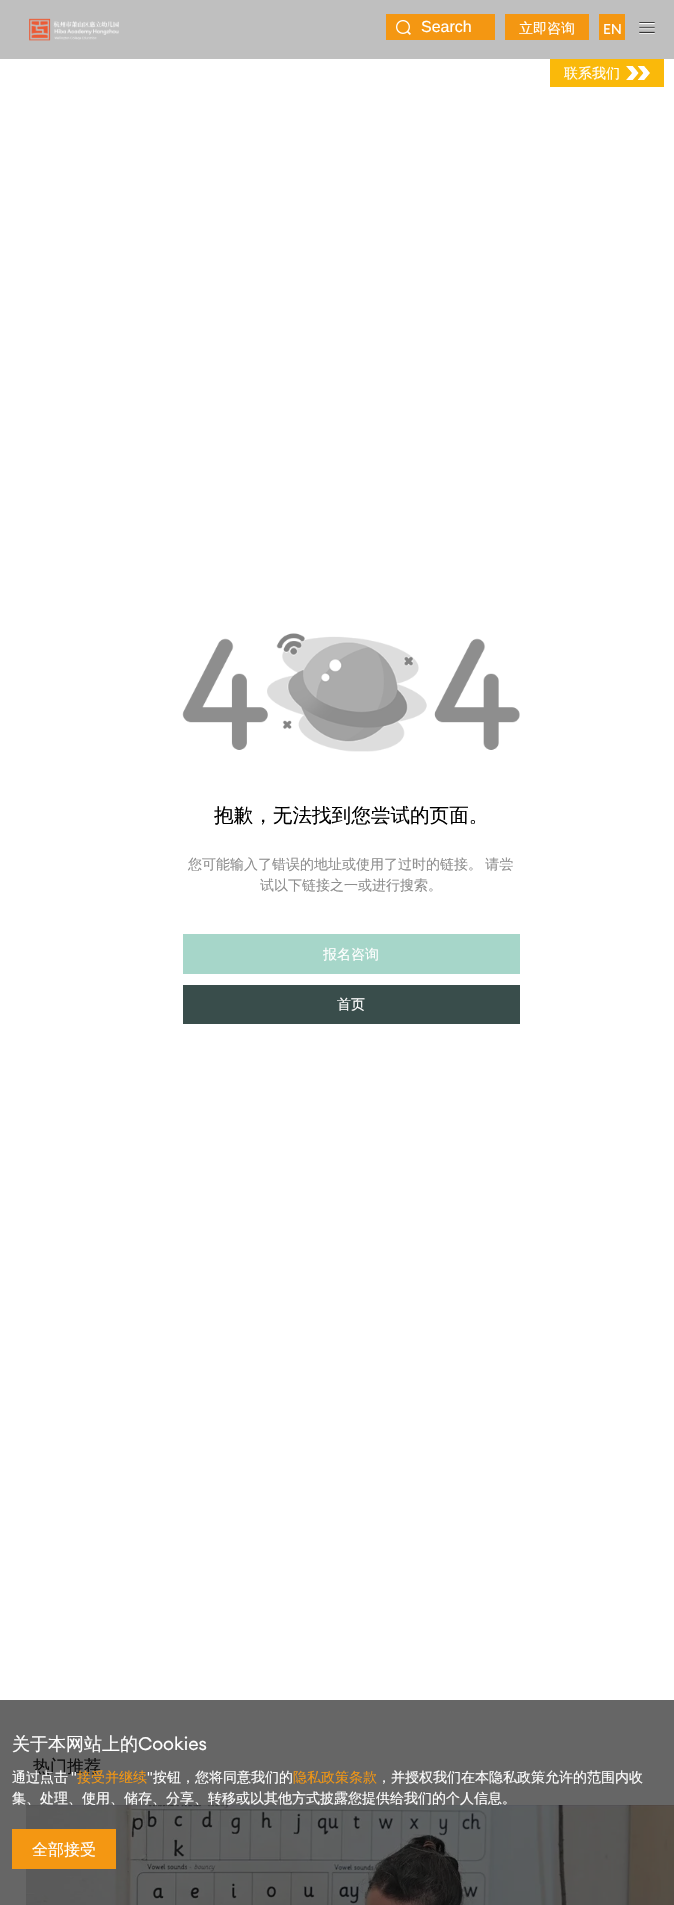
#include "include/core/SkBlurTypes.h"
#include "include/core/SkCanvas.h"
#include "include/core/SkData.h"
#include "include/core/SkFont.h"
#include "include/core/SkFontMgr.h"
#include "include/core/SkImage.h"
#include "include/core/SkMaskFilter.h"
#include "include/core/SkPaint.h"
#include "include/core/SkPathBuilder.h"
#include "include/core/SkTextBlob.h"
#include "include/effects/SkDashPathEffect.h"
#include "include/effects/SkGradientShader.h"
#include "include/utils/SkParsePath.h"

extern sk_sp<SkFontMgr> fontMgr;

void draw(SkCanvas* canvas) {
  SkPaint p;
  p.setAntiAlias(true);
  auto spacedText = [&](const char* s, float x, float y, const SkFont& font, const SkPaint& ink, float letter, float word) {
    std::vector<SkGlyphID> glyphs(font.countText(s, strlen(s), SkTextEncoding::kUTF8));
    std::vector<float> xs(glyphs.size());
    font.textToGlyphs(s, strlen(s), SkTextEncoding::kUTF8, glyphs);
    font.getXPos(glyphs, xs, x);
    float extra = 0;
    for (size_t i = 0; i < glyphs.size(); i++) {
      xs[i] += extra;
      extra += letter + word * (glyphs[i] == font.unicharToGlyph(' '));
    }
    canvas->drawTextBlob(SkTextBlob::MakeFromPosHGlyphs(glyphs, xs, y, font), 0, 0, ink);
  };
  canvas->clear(SK_ColorWHITE);
  p.setColor(SkColorSetRGB(102, 102, 102));
  canvas->drawRect(SkRect::MakeLTRB(0, 1700, 674, 1905), p);
  p.setColor(SkColorSetRGB(191, 191, 191));
  canvas->drawRect(SkRect::MakeLTRB(0, 0, 674, 59), p);
  canvas->drawImageRect(SkImages::DeferredFromEncodedData(SkData::MakeFromFileName("images/1.png")), SkRect::MakeLTRB(29, 18, 119, 41), SkSamplingOptions());
  p.setColor(SkColorSetRGB(244, 151, 18));
  canvas->drawRect(SkRect::MakeLTRB(386, 14, 495, 40), p);
  canvas->drawImageRect(SkImages::DeferredFromEncodedData(SkData::MakeFromFileName("images/2.png")), SkRect::MakeLTRB(396, 20, 411, 35), SkSamplingOptions());
  canvas->drawRect(SkRect::MakeLTRB(505, 14, 589, 40), p);
  canvas->drawRect(SkRect::MakeLTRB(599, 14, 625, 40), p);
  canvas->drawImageRect(SkImages::DeferredFromEncodedData(SkData::MakeFromFileName("images/3.png")), SkRect::MakeLTRB(639, 22, 656, 34), SkSamplingOptions());
  p.setColor(SkColorSetRGB(250, 185, 10));
  canvas->drawRect(SkRect::MakeLTRB(550, 59, 664, 87), p);
  canvas->drawImageRect(SkImages::DeferredFromEncodedData(SkData::MakeFromFileName("images/4.png")), SkRect::MakeLTRB(626, 66, 650, 80), SkSamplingOptions());
  canvas->drawImageRect(SkImages::DeferredFromEncodedData(SkData::MakeFromFileName("images/5.png")), SkRect::MakeLTRB(182, 633, 520, 752), SkSamplingOptions());
  p.setColor(SkColorSetRGB(166, 214, 201));
  canvas->drawRect(SkRect::MakeLTRB(183, 934, 520, 974), p);
  p.setColor(SkColorSetRGB(57, 77, 75));
  canvas->drawRect(SkRect::MakeLTRB(183, 985, 520, 1024), p);
  canvas->drawImageRect(SkImages::DeferredFromEncodedData(SkData::MakeFromFileName("images/6.png")), SkRect::MakeLTRB(26, 1805, 674, 1905), SkSamplingOptions());
  p.setColor(SkColorSetRGB(244, 151, 18));
  canvas->drawRect(SkRect::MakeLTRB(12, 1829, 116, 1869), p);
  SkFont font1(fontMgr->matchFamilyStyle("Liberation Sans", SkFontStyle::Normal()), 16);
  font1.setSubpixel(true);
  p.setColor(SK_ColorWHITE);
  canvas->drawString("Search", 421, 32, font1, p);
  SkFont font2(fontMgr->matchFamilyStyle("WenQuanYi Zen Hei", SkFontStyle(500, SkFontStyle::kNormal_Width, SkFontStyle::kUpright_Slant)), 14);
  font2.setSubpixel(true);
  canvas->drawString("立即咨询", 519, 33, font2, p);
  SkFont font3(fontMgr->matchFamilyStyle("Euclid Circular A", SkFontStyle::Normal()), 14);
  font3.setSubpixel(true);
  canvas->drawString("EN", 603, 34, font3, p);
  canvas->drawString("联系我们", 564, 78, font2, p);
  SkFont font4(fontMgr->matchFamilyStyle("WenQuanYi Zen Hei", SkFontStyle(500, SkFontStyle::kNormal_Width, SkFontStyle::kUpright_Slant)), 19.6f);
  font4.setSubpixel(true);
  p.setColor(SK_ColorBLACK);
  canvas->drawString("抱歉，无法找到您尝试的页面。", 214, 822, font4, p);
  p.setColor(SkColorSetRGB(142, 142, 142));
  spacedText("您可能输入了错误的地址或使用了过时的链接。 请尝", 188, 869, font2, p, 0, -1);
  canvas->drawString("试以下链接之一或进行搜索。", 260, 890, font2, p);
  p.setColor(SK_ColorWHITE);
  canvas->drawString("报名咨询", 323, 959, font2, p);
  canvas->drawString("首页", 337, 1009, font2, p);
  SkFont font5(fontMgr->matchFamilyStyle("WenQuanYi Zen Hei", SkFontStyle(500, SkFontStyle::kNormal_Width, SkFontStyle::kUpright_Slant)), 17);
  font5.setSubpixel(true);
  p.setColor(SkColorSetRGB(14, 14, 14));
  canvas->drawString("热门推荐", 33, 1772, font5, p);
  SkFont font6(fontMgr->matchFamilyStyle("WenQuanYi Zen Hei", SkFontStyle(500, SkFontStyle::kNormal_Width, SkFontStyle::kUpright_Slant)), 18);
  font6.setSubpixel(true);
  p.setColor(SK_ColorWHITE);
  canvas->drawString("关于本网站上的", 12, 1750, font6, p);
  SkFont font7(fontMgr->matchFamilyStyle("Euclid Circular A", SkFontStyle::Normal()), 18);
  font7.setSubpixel(true);
  canvas->drawString("Cookies", 138, 1750, font7, p);
  canvas->drawString("通过点击", 12, 1782, font2, p);
  canvas->drawString("\"", 71, 1782, font3, p);
  p.setColor(SkColorSetRGB(244, 151, 18));
  canvas->drawString("接受并继续", 77, 1782, font2, p);
  p.setColor(SK_ColorWHITE);
  canvas->drawString("\"", 147, 1782, font3, p);
  canvas->drawString("按钮，您将同意我们的", 153, 1782, font2, p);
  p.setColor(SkColorSetRGB(244, 151, 18));
  canvas->drawString("隐私政策条款", 293, 1782, font2, p);
  p.setColor(SK_ColorWHITE);
  canvas->drawString("，并授权我们在本隐私政策允许的范围内收", 377, 1782, font2, p);
  canvas->drawString("集、处理、使用、储存、分享、转移或以其他方式披露您提供给我们的个人信息。", 12, 1803, font2, p);
  SkFont font8(fontMgr->matchFamilyStyle("WenQuanYi Zen Hei", SkFontStyle(500, SkFontStyle::kNormal_Width, SkFontStyle::kUpright_Slant)), 16);
  font8.setSubpixel(true);
  canvas->drawString("全部接受", 32, 1855, font8, p);
}
